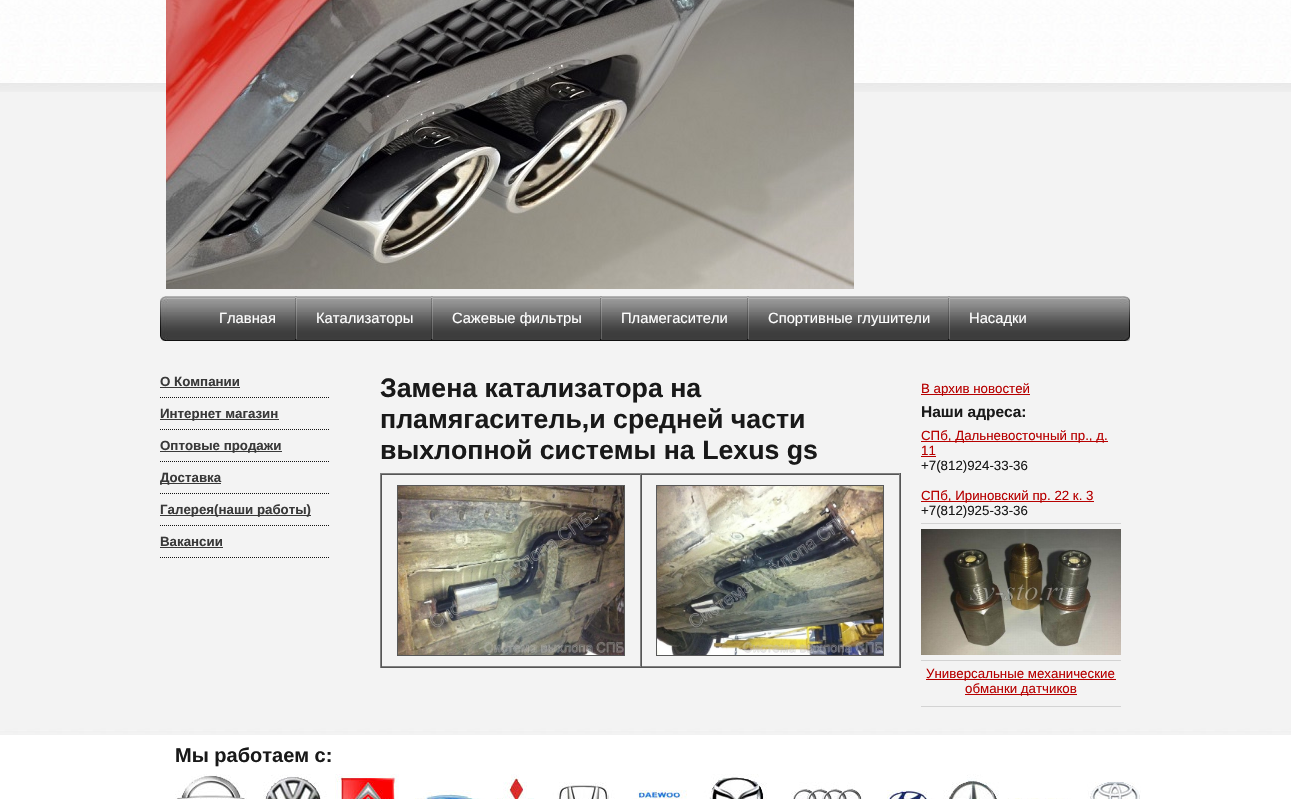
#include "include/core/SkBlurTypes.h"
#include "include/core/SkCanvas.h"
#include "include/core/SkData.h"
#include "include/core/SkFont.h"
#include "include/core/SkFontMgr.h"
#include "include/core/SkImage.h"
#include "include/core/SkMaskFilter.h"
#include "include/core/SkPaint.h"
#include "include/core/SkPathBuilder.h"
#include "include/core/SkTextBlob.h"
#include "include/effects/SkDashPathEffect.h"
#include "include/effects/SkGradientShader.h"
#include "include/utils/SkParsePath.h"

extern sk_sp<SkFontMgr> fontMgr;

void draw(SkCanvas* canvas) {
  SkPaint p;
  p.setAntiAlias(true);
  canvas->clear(SkColorSetRGB(243, 243, 243));
  canvas->drawImageRect(SkImages::DeferredFromEncodedData(SkData::MakeFromFileName("images/1.png")), SkRect::MakeLTRB(0, 0, 1291, 92), SkSamplingOptions());
  canvas->drawImageRect(SkImages::DeferredFromEncodedData(SkData::MakeFromFileName("images/2.png")), SkRect::MakeLTRB(166, 0, 854, 289), SkSamplingOptions());
  canvas->drawImageRect(SkImages::DeferredFromEncodedData(SkData::MakeFromFileName("images/3.png")), SkRect::MakeLTRB(160, 296, 1130, 341), SkSamplingOptions());
  canvas->drawImageRect(SkImages::DeferredFromEncodedData(SkData::MakeFromFileName("images/4.png")), SkRect::MakeLTRB(295, 296, 297, 340), SkSamplingOptions());
  canvas->drawImageRect(SkImages::DeferredFromEncodedData(SkData::MakeFromFileName("images/4.png")), SkRect::MakeLTRB(431, 296, 433, 340), SkSamplingOptions());
  canvas->drawImageRect(SkImages::DeferredFromEncodedData(SkData::MakeFromFileName("images/4.png")), SkRect::MakeLTRB(600, 296, 602, 340), SkSamplingOptions());
  canvas->drawImageRect(SkImages::DeferredFromEncodedData(SkData::MakeFromFileName("images/4.png")), SkRect::MakeLTRB(747, 296, 749, 340), SkSamplingOptions());
  canvas->drawImageRect(SkImages::DeferredFromEncodedData(SkData::MakeFromFileName("images/4.png")), SkRect::MakeLTRB(948, 296, 950, 340), SkSamplingOptions());
  p.setStyle(SkPaint::kStroke_Style);
  p.setStrokeWidth(1);
  p.setColor(SkColorSetRGB(19, 19, 19));
  p.setPathEffect(SkDashPathEffect::Make({{1, 1}}, 0));
  canvas->drawPath(SkPathBuilder().moveTo(160, 397.5f).lineTo(330, 397.5f).detach(), p);
  p.setPathEffect(nullptr);
  p.setStyle(SkPaint::kFill_Style);
  p.setColor(SkColorSetRGB(57, 57, 57));
  canvas->drawRect(SkRect::MakeLTRB(160, 387, 240, 388), p);
  p.setStyle(SkPaint::kStroke_Style);
  p.setColor(SkColorSetRGB(19, 19, 19));
  p.setPathEffect(SkDashPathEffect::Make({{1, 1}}, 0));
  canvas->drawPath(SkPathBuilder().moveTo(160, 429.5f).lineTo(330, 429.5f).detach(), p);
  p.setPathEffect(nullptr);
  p.setStyle(SkPaint::kFill_Style);
  p.setColor(SkColorSetRGB(57, 57, 57));
  canvas->drawRect(SkRect::MakeLTRB(160, 419, 279, 420), p);
  p.setStyle(SkPaint::kStroke_Style);
  p.setColor(SkColorSetRGB(19, 19, 19));
  p.setPathEffect(SkDashPathEffect::Make({{1, 1}}, 0));
  canvas->drawPath(SkPathBuilder().moveTo(160, 461.5f).lineTo(330, 461.5f).detach(), p);
  p.setPathEffect(nullptr);
  p.setStyle(SkPaint::kFill_Style);
  p.setColor(SkColorSetRGB(57, 57, 57));
  canvas->drawRect(SkRect::MakeLTRB(160, 451, 282, 452), p);
  p.setStyle(SkPaint::kStroke_Style);
  p.setColor(SkColorSetRGB(19, 19, 19));
  p.setPathEffect(SkDashPathEffect::Make({{1, 1}}, 0));
  canvas->drawPath(SkPathBuilder().moveTo(160, 493.5f).lineTo(330, 493.5f).detach(), p);
  p.setPathEffect(nullptr);
  p.setStyle(SkPaint::kFill_Style);
  p.setColor(SkColorSetRGB(57, 57, 57));
  canvas->drawRect(SkRect::MakeLTRB(160, 483, 221, 484), p);
  p.setStyle(SkPaint::kStroke_Style);
  p.setColor(SkColorSetRGB(19, 19, 19));
  p.setPathEffect(SkDashPathEffect::Make({{1, 1}}, 0));
  canvas->drawPath(SkPathBuilder().moveTo(160, 525.5f).lineTo(330, 525.5f).detach(), p);
  p.setPathEffect(nullptr);
  p.setStyle(SkPaint::kFill_Style);
  p.setColor(SkColorSetRGB(57, 57, 57));
  canvas->drawRect(SkRect::MakeLTRB(160, 515, 311, 516), p);
  p.setStyle(SkPaint::kStroke_Style);
  p.setColor(SkColorSetRGB(19, 19, 19));
  p.setPathEffect(SkDashPathEffect::Make({{1, 1}}, 0));
  canvas->drawPath(SkPathBuilder().moveTo(160, 557.5f).lineTo(330, 557.5f).detach(), p);
  p.setPathEffect(nullptr);
  p.setStyle(SkPaint::kFill_Style);
  p.setColor(SkColorSetRGB(57, 57, 57));
  canvas->drawRect(SkRect::MakeLTRB(160, 547, 223, 548), p);
  p.setColor(SkColorSetRGB(128, 128, 128));
  canvas->drawRect(SkRect::MakeLTRB(380, 473, 901, 474), p);
  p.setColor(SkColorSetRGB(85, 85, 85));
  canvas->drawRect(SkRect::MakeLTRB(900, 473, 901, 668), p);
  canvas->drawRect(SkRect::MakeLTRB(380, 667, 901, 668), p);
  p.setColor(SkColorSetRGB(128, 128, 128));
  canvas->drawRect(SkRect::MakeLTRB(380, 473, 381, 668), p);
  p.setColor(SkColorSetRGB(85, 85, 85));
  canvas->drawRect(SkRect::MakeLTRB(381, 474, 900, 475), p);
  p.setColor(SkColorSetRGB(128, 128, 128));
  canvas->drawRect(SkRect::MakeLTRB(640, 474, 641, 667), p);
  canvas->drawRect(SkRect::MakeLTRB(381, 666, 641, 667), p);
  p.setColor(SkColorSetRGB(85, 85, 85));
  canvas->drawRect(SkRect::MakeLTRB(381, 474, 382, 667), p);
  p.setStyle(SkPaint::kStroke_Style);
  p.setColor(SkColorSetRGB(88, 88, 88));
  canvas->drawRect(SkRect::MakeLTRB(397.5f, 485.5f, 624.5f, 655.5f), p);
  canvas->drawImageRect(SkImages::DeferredFromEncodedData(SkData::MakeFromFileName("images/5.png")), SkRect::MakeLTRB(398, 486, 624, 655), SkSamplingOptions());
  p.setStyle(SkPaint::kFill_Style);
  p.setColor(SkColorSetRGB(128, 128, 128));
  canvas->drawRect(SkRect::MakeLTRB(899, 474, 900, 667), p);
  canvas->drawRect(SkRect::MakeLTRB(641, 666, 900, 667), p);
  p.setColor(SkColorSetRGB(85, 85, 85));
  canvas->drawRect(SkRect::MakeLTRB(641, 474, 642, 667), p);
  p.setStyle(SkPaint::kStroke_Style);
  p.setColor(SkColorSetRGB(88, 88, 88));
  canvas->drawRect(SkRect::MakeLTRB(656.5f, 485.5f, 883.5f, 655.5f), p);
  canvas->drawImageRect(SkImages::DeferredFromEncodedData(SkData::MakeFromFileName("images/6.png")), SkRect::MakeLTRB(657, 486, 883, 655), SkSamplingOptions());
  p.setStyle(SkPaint::kFill_Style);
  p.setColor(SkColorSetRGB(183, 0, 0));
  canvas->drawRect(SkRect::MakeLTRB(921, 394, 1030, 395), p);
  p.setColor(SkColorSetRGB(211, 211, 211));
  canvas->drawRect(SkRect::MakeLTRB(921, 523, 1121, 524), p);
  p.setColor(SkColorSetRGB(183, 0, 0));
  canvas->drawRect(SkRect::MakeLTRB(921, 441, 1108, 442), p);
  canvas->drawRect(SkRect::MakeLTRB(921, 456, 936, 457), p);
  canvas->drawRect(SkRect::MakeLTRB(921, 501, 1094, 502), p);
  p.setColor(SkColorSetRGB(211, 211, 211));
  canvas->drawRect(SkRect::MakeLTRB(921, 660, 1121, 661), p);
  canvas->drawImageRect(SkImages::DeferredFromEncodedData(SkData::MakeFromFileName("images/7.png")), SkRect::MakeLTRB(921, 529, 1121, 655), SkSamplingOptions());
  p.setColor(SkColorSetRGB(183, 0, 0));
  canvas->drawRect(SkRect::MakeLTRB(926, 679, 1116, 680), p);
  canvas->drawRect(SkRect::MakeLTRB(965, 694, 1077, 695), p);
  p.setColor(SkColorSetRGB(211, 211, 211));
  canvas->drawRect(SkRect::MakeLTRB(921, 706, 1121, 707), p);
  p.setColor(SK_ColorWHITE);
  canvas->drawRect(SkRect::MakeLTRB(0, 735, 1291, 799), p);
  canvas->drawImageRect(SkImages::DeferredFromEncodedData(SkData::MakeFromFileName("images/8.png")), SkRect::MakeLTRB(0, 712, 1291, 735), SkSamplingOptions());
  canvas->drawImageRect(SkImages::DeferredFromEncodedData(SkData::MakeFromFileName("images/9.png")), SkRect::MakeLTRB(175, 774, 1141, 799), SkSamplingOptions());
  SkFont font1(fontMgr->matchFamilyStyle("Liberation Sans", SkFontStyle::Normal()), 14.75f);
  font1.setSubpixel(true);
  canvas->drawString("Главная", 219, 323, font1, p);
  canvas->drawString("Катализаторы", 316, 323, font1, p);
  canvas->drawString("Сажевые фильтры", 452, 323, font1, p);
  canvas->drawString("Пламегасители", 621, 323, font1, p);
  canvas->drawString("Спортивные глушители", 768, 323, font1, p);
  canvas->drawString("Насадки", 969, 323, font1, p);
  SkFont font2(fontMgr->matchFamilyStyle("Liberation Sans", SkFontStyle::Bold()), 13.3f);
  font2.setSubpixel(true);
  p.setColor(SkColorSetRGB(57, 57, 57));
  canvas->drawString("О Компании", 160, 386, font2, p);
  canvas->drawString("Интернет магазин", 160, 418, font2, p);
  canvas->drawString("Оптовые продажи", 160, 450, font2, p);
  canvas->drawString("Доставка", 160, 482, font2, p);
  canvas->drawString("Галерея(наши работы)", 160, 514, font2, p);
  canvas->drawString("Вакансии", 160, 546, font2, p);
  SkFont font3(fontMgr->matchFamilyStyle("Liberation Sans", SkFontStyle::Bold()), 26.7f);
  font3.setSubpixel(true);
  p.setColor(SkColorSetRGB(25, 25, 25));
  canvas->drawString("Замена катализатора на", 380, 397, font3, p);
  canvas->drawString("пламягаситель,и средней части", 380, 428, font3, p);
  canvas->drawString("выхлопной системы на Lexus gs", 380, 459, font3, p);
  SkFont font4(fontMgr->matchFamilyStyle("Liberation Sans", SkFontStyle::Normal()), 13.3f);
  font4.setSubpixel(true);
  p.setColor(SkColorSetRGB(183, 0, 0));
  canvas->drawString("В архив новостей", 921, 393, font4, p);
  SkFont font5(fontMgr->matchFamilyStyle("Liberation Sans", SkFontStyle::Bold()), 15.5f);
  font5.setSubpixel(true);
  p.setColor(SkColorSetRGB(25, 25, 25));
  canvas->drawString("Наши адреса:", 921, 417, font5, p);
  p.setColor(SkColorSetRGB(183, 0, 0));
  canvas->drawString("СПб, Дальневосточный пр., д.", 921, 440, font4, p);
  canvas->drawString("11", 921, 455, font4, p);
  p.setColor(SkColorSetRGB(25, 25, 25));
  canvas->drawString("+7(812)924-33-36", 921, 470, font4, p);
  p.setColor(SkColorSetRGB(183, 0, 0));
  canvas->drawString("СПб, Ириновский пр. 22 к. 3", 921, 500, font4, p);
  p.setColor(SkColorSetRGB(25, 25, 25));
  canvas->drawString("+7(812)925-33-36", 921, 515, font4, p);
  p.setColor(SkColorSetRGB(183, 0, 0));
  canvas->drawString("Универсальные механические", 926, 678, font4, p);
  canvas->drawString("обманки датчиков", 965, 693, font4, p);
  SkFont font6(fontMgr->matchFamilyStyle("Liberation Sans", SkFontStyle::Bold()), 20);
  font6.setSubpixel(true);
  p.setColor(SkColorSetRGB(25, 25, 25));
  canvas->drawString("Мы работаем с:", 175, 762, font6, p);
}
